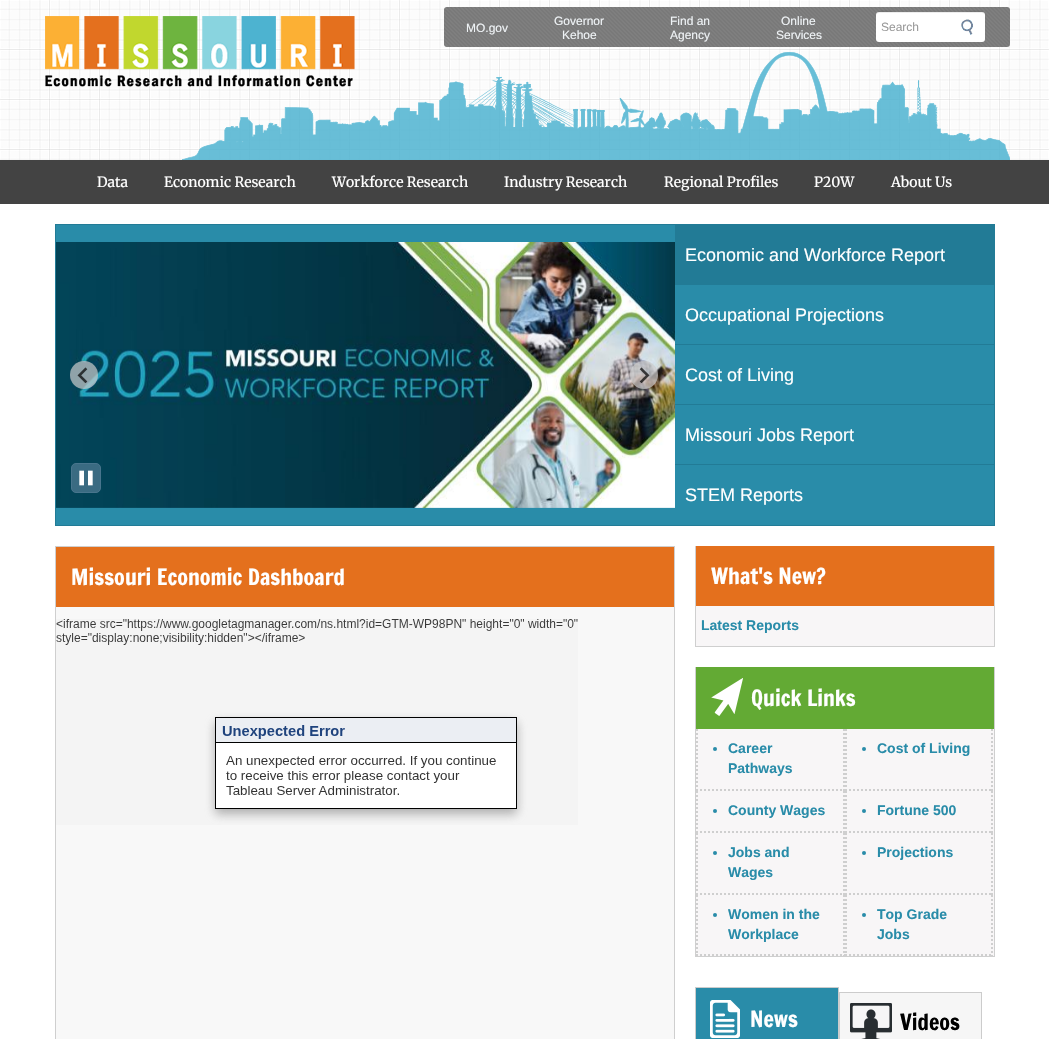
#include "include/core/SkBlurTypes.h"
#include "include/core/SkCanvas.h"
#include "include/core/SkData.h"
#include "include/core/SkFont.h"
#include "include/core/SkFontMgr.h"
#include "include/core/SkImage.h"
#include "include/core/SkMaskFilter.h"
#include "include/core/SkPaint.h"
#include "include/core/SkPathBuilder.h"
#include "include/core/SkTextBlob.h"
#include "include/effects/SkDashPathEffect.h"
#include "include/effects/SkGradientShader.h"
#include "include/utils/SkParsePath.h"

extern sk_sp<SkFontMgr> fontMgr;

void draw(SkCanvas* canvas) {
  SkPaint p;
  p.setAntiAlias(true);
  canvas->clear(SK_ColorWHITE);
  canvas->drawImageRect(SkImages::DeferredFromEncodedData(SkData::MakeFromFileName("images/1.png")), SkRect::MakeLTRB(0, 0, 1049, 160), SkSamplingOptions());
  canvas->drawImageRect(SkImages::DeferredFromEncodedData(SkData::MakeFromFileName("images/2.png")), SkRect::MakeLTRB(182, 52, 1010, 160), SkSamplingOptions());
  canvas->drawImageRect(SkImages::DeferredFromEncodedData(SkData::MakeFromFileName("images/3.png")), SkRect::MakeLTRB(45, 16, 355, 87), SkSamplingOptions());
  p.setColor(SkColorSetRGB(127, 127, 127));
  canvas->drawRoundRect(SkRect::MakeLTRB(444, 7, 1010, 47), 3, 3, p);
  canvas->drawImageRect(SkImages::DeferredFromEncodedData(SkData::MakeFromFileName("images/4.png")), SkRect::MakeLTRB(444, 7, 1010, 47), SkSamplingOptions());
  p.setColor(SK_ColorWHITE);
  canvas->drawRoundRect(SkRect::MakeLTRB(876, 12, 985, 42), 3, 3, p);
  p.setColor(SkColorSetARGB(18, 0, 0, 0));
  canvas->drawPath(SkPathBuilder().moveTo(879, 13).lineTo(982, 13).cubicTo(984, 13, 985, 14, 985, 16).cubicTo(985, 7, 967, 12, 965, 12).lineTo(896, 12).cubicTo(894, 12, 876, 7, 876, 16).cubicTo(876, 14, 877, 13, 879, 13).close().detach(), p);
  canvas->drawImageRect(SkImages::DeferredFromEncodedData(SkData::MakeFromFileName("images/5.png")), SkRect::MakeLTRB(961, 19, 973, 35), SkSamplingOptions());
  p.setColor(SkColorSetRGB(67, 67, 67));
  canvas->drawRect(SkRect::MakeLTRB(0, 160, 1049, 204), p);
  p.setColor(SkColorSetRGB(41, 140, 169));
  canvas->drawRect(SkRect::MakeLTRB(55.5f, 224.5f, 994.5f, 525.5f), p);
  p.setStyle(SkPaint::kStroke_Style);
  p.setStrokeWidth(1);
  p.setColor(SkColorSetRGB(34, 123, 150));
  canvas->drawRect(SkRect::MakeLTRB(55.5f, 224.5f, 994.5f, 525.5f), p);
  canvas->drawImageRect(SkImages::DeferredFromEncodedData(SkData::MakeFromFileName("images/6.png")), SkRect::MakeLTRB(56, 242, 675, 508), SkSamplingOptions());
  p.setStyle(SkPaint::kFill_Style);
  p.setColor(SkColorSetRGB(58, 107, 130));
  canvas->drawRoundRect(SkRect::MakeLTRB(71.5f, 463.5f, 100.5f, 492.5f), 4.5f, 4.5f, p);
  p.setStyle(SkPaint::kStroke_Style);
  p.setColor(SkColorSetRGB(72, 117, 141));
  canvas->drawRoundRect(SkRect::MakeLTRB(71.5f, 463.5f, 100.5f, 492.5f), 4.5f, 4.5f, p);
  canvas->drawImageRect(SkImages::DeferredFromEncodedData(SkData::MakeFromFileName("images/7.png")), SkRect::MakeLTRB(79, 470, 93, 486), SkSamplingOptions());
  p.setStyle(SkPaint::kFill_Style);
  p.setColor(SkColorSetRGB(34, 123, 150));
  canvas->drawRect(SkRect::MakeLTRB(675, 225, 994, 285), p);
  canvas->drawRect(SkRect::MakeLTRB(675, 344, 994, 345), p);
  canvas->drawRect(SkRect::MakeLTRB(675, 404, 994, 405), p);
  canvas->drawRect(SkRect::MakeLTRB(675, 464, 994, 465), p);
  p.setColor(SkColorSetARGB(179, 204, 204, 204));
  canvas->drawCircle(84, 375, 14, p);
  canvas->drawImageRect(SkImages::DeferredFromEncodedData(SkData::MakeFromFileName("images/8.png")), SkRect::MakeLTRB(77, 367, 88, 383), SkSamplingOptions());
  canvas->drawCircle(644, 375, 14, p);
  canvas->drawImageRect(SkImages::DeferredFromEncodedData(SkData::MakeFromFileName("images/9.png")), SkRect::MakeLTRB(639, 367, 650, 383), SkSamplingOptions());
  p.setColor(SkColorSetRGB(248, 248, 248));
  canvas->drawRect(SkRect::MakeLTRB(56, 607, 674, 1039), p);
  p.setStyle(SkPaint::kStroke_Style);
  p.setColor(SkColorSetRGB(207, 207, 207));
  canvas->drawRect(SkRect::MakeLTRB(55.5f, 546.5f, 674.5f, 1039.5f), p);
  p.setStyle(SkPaint::kFill_Style);
  p.setColor(SkColorSetRGB(228, 112, 29));
  canvas->drawRect(SkRect::MakeLTRB(56, 547, 674, 607), p);
  canvas->drawImageRect(SkImages::DeferredFromEncodedData(SkData::MakeFromFileName("images/10.png")), SkRect::MakeLTRB(56, 619, 578, 825), SkSamplingOptions());
  p.setColor(SkColorSetRGB(248, 246, 247));
  canvas->drawRect(SkRect::MakeLTRB(696, 606, 994, 646), p);
  p.setColor(SkColorSetRGB(207, 207, 207));
  canvas->drawRect(SkRect::MakeLTRB(994, 546, 995, 647), p);
  canvas->drawRect(SkRect::MakeLTRB(695, 646, 995, 647), p);
  canvas->drawRect(SkRect::MakeLTRB(695, 546, 696, 647), p);
  p.setColor(SkColorSetRGB(228, 112, 29));
  canvas->drawRect(SkRect::MakeLTRB(696, 546, 994, 606), p);
  p.setColor(SkColorSetRGB(248, 246, 247));
  canvas->drawRect(SkRect::MakeLTRB(696, 729, 994, 956), p);
  p.setColor(SkColorSetRGB(207, 207, 207));
  canvas->drawRect(SkRect::MakeLTRB(994, 667, 995, 957), p);
  canvas->drawRect(SkRect::MakeLTRB(695, 956, 995, 957), p);
  canvas->drawRect(SkRect::MakeLTRB(695, 667, 696, 957), p);
  p.setColor(SkColorSetRGB(99, 170, 52));
  canvas->drawRect(SkRect::MakeLTRB(696, 667, 994, 729), p);
  canvas->drawImageRect(SkImages::DeferredFromEncodedData(SkData::MakeFromFileName("images/11.png")), SkRect::MakeLTRB(711, 678, 743, 716), SkSamplingOptions());
  p.setStyle(SkPaint::kStroke_Style);
  p.setStrokeWidth(2);
  p.setColor(SkColorSetRGB(207, 207, 207));
  p.setPathEffect(SkDashPathEffect::Make({{2, 2}}, 0));
  canvas->drawPath(SkPathBuilder().moveTo(844, 729).lineTo(844, 791).detach(), p);
  p.setPathEffect(nullptr);
  p.setPathEffect(SkDashPathEffect::Make({{2, 2}}, 0));
  canvas->drawPath(SkPathBuilder().moveTo(696, 790).lineTo(845, 790).detach(), p);
  p.setPathEffect(nullptr);
  p.setPathEffect(SkDashPathEffect::Make({{2, 2}}, 0));
  canvas->drawPath(SkPathBuilder().moveTo(697, 729).lineTo(697, 791).detach(), p);
  p.setPathEffect(nullptr);
  p.setStyle(SkPaint::kFill_Style);
  p.setColor(SkColorSetRGB(41, 140, 169));
  canvas->drawCircle(715, 749, 2, p);
  p.setStyle(SkPaint::kStroke_Style);
  p.setColor(SkColorSetRGB(207, 207, 207));
  p.setPathEffect(SkDashPathEffect::Make({{2, 2}}, 0));
  canvas->drawPath(SkPathBuilder().moveTo(992, 729).lineTo(992, 791).detach(), p);
  p.setPathEffect(nullptr);
  p.setPathEffect(SkDashPathEffect::Make({{2, 2}}, 0));
  canvas->drawPath(SkPathBuilder().moveTo(845, 790).lineTo(993, 790).detach(), p);
  p.setPathEffect(nullptr);
  p.setPathEffect(SkDashPathEffect::Make({{2, 2}}, 0));
  canvas->drawPath(SkPathBuilder().moveTo(846, 729).lineTo(846, 791).detach(), p);
  p.setPathEffect(nullptr);
  p.setStyle(SkPaint::kFill_Style);
  p.setColor(SkColorSetRGB(41, 140, 169));
  canvas->drawCircle(864, 749, 2, p);
  p.setStyle(SkPaint::kStroke_Style);
  p.setColor(SkColorSetRGB(207, 207, 207));
  p.setPathEffect(SkDashPathEffect::Make({{2, 2}}, 0));
  canvas->drawPath(SkPathBuilder().moveTo(844, 791).lineTo(844, 833).detach(), p);
  p.setPathEffect(nullptr);
  p.setPathEffect(SkDashPathEffect::Make({{2, 2}}, 0));
  canvas->drawPath(SkPathBuilder().moveTo(696, 832).lineTo(845, 832).detach(), p);
  p.setPathEffect(nullptr);
  p.setPathEffect(SkDashPathEffect::Make({{2, 2}}, 0));
  canvas->drawPath(SkPathBuilder().moveTo(697, 791).lineTo(697, 833).detach(), p);
  p.setPathEffect(nullptr);
  p.setStyle(SkPaint::kFill_Style);
  p.setColor(SkColorSetRGB(41, 140, 169));
  canvas->drawCircle(715, 811, 2, p);
  p.setStyle(SkPaint::kStroke_Style);
  p.setColor(SkColorSetRGB(207, 207, 207));
  p.setPathEffect(SkDashPathEffect::Make({{2, 2}}, 0));
  canvas->drawPath(SkPathBuilder().moveTo(992, 791).lineTo(992, 833).detach(), p);
  p.setPathEffect(nullptr);
  p.setPathEffect(SkDashPathEffect::Make({{2, 2}}, 0));
  canvas->drawPath(SkPathBuilder().moveTo(845, 832).lineTo(993, 832).detach(), p);
  p.setPathEffect(nullptr);
  p.setPathEffect(SkDashPathEffect::Make({{2, 2}}, 0));
  canvas->drawPath(SkPathBuilder().moveTo(846, 791).lineTo(846, 833).detach(), p);
  p.setPathEffect(nullptr);
  p.setStyle(SkPaint::kFill_Style);
  p.setColor(SkColorSetRGB(41, 140, 169));
  canvas->drawCircle(864, 811, 2, p);
  p.setStyle(SkPaint::kStroke_Style);
  p.setColor(SkColorSetRGB(207, 207, 207));
  p.setPathEffect(SkDashPathEffect::Make({{2, 2}}, 0));
  canvas->drawPath(SkPathBuilder().moveTo(844, 833).lineTo(844, 895).detach(), p);
  p.setPathEffect(nullptr);
  p.setPathEffect(SkDashPathEffect::Make({{2, 2}}, 0));
  canvas->drawPath(SkPathBuilder().moveTo(696, 894).lineTo(845, 894).detach(), p);
  p.setPathEffect(nullptr);
  p.setPathEffect(SkDashPathEffect::Make({{2, 2}}, 0));
  canvas->drawPath(SkPathBuilder().moveTo(697, 833).lineTo(697, 895).detach(), p);
  p.setPathEffect(nullptr);
  p.setStyle(SkPaint::kFill_Style);
  p.setColor(SkColorSetRGB(41, 140, 169));
  canvas->drawCircle(715, 853, 2, p);
  p.setStyle(SkPaint::kStroke_Style);
  p.setColor(SkColorSetRGB(207, 207, 207));
  p.setPathEffect(SkDashPathEffect::Make({{2, 2}}, 0));
  canvas->drawPath(SkPathBuilder().moveTo(992, 833).lineTo(992, 895).detach(), p);
  p.setPathEffect(nullptr);
  p.setPathEffect(SkDashPathEffect::Make({{2, 2}}, 0));
  canvas->drawPath(SkPathBuilder().moveTo(845, 894).lineTo(993, 894).detach(), p);
  p.setPathEffect(nullptr);
  p.setPathEffect(SkDashPathEffect::Make({{2, 2}}, 0));
  canvas->drawPath(SkPathBuilder().moveTo(846, 833).lineTo(846, 895).detach(), p);
  p.setPathEffect(nullptr);
  p.setStyle(SkPaint::kFill_Style);
  p.setColor(SkColorSetRGB(41, 140, 169));
  canvas->drawCircle(864, 853, 2, p);
  p.setStyle(SkPaint::kStroke_Style);
  p.setColor(SkColorSetRGB(207, 207, 207));
  p.setPathEffect(SkDashPathEffect::Make({{2, 2}}, 0));
  canvas->drawPath(SkPathBuilder().moveTo(844, 895).lineTo(844, 956).detach(), p);
  p.setPathEffect(nullptr);
  p.setPathEffect(SkDashPathEffect::Make({{2, 2}}, 0));
  canvas->drawPath(SkPathBuilder().moveTo(696, 955).lineTo(845, 955).detach(), p);
  p.setPathEffect(nullptr);
  p.setPathEffect(SkDashPathEffect::Make({{2, 2}}, 0));
  canvas->drawPath(SkPathBuilder().moveTo(697, 895).lineTo(697, 956).detach(), p);
  p.setPathEffect(nullptr);
  p.setStyle(SkPaint::kFill_Style);
  p.setColor(SkColorSetRGB(41, 140, 169));
  canvas->drawCircle(715, 915, 2, p);
  p.setStyle(SkPaint::kStroke_Style);
  p.setColor(SkColorSetRGB(207, 207, 207));
  p.setPathEffect(SkDashPathEffect::Make({{2, 2}}, 0));
  canvas->drawPath(SkPathBuilder().moveTo(992, 895).lineTo(992, 956).detach(), p);
  p.setPathEffect(nullptr);
  p.setPathEffect(SkDashPathEffect::Make({{2, 2}}, 0));
  canvas->drawPath(SkPathBuilder().moveTo(845, 955).lineTo(993, 955).detach(), p);
  p.setPathEffect(nullptr);
  p.setPathEffect(SkDashPathEffect::Make({{2, 2}}, 0));
  canvas->drawPath(SkPathBuilder().moveTo(846, 895).lineTo(846, 956).detach(), p);
  p.setPathEffect(nullptr);
  p.setStyle(SkPaint::kFill_Style);
  p.setColor(SkColorSetRGB(41, 140, 169));
  canvas->drawCircle(864, 915, 2, p);
  canvas->drawRect(SkRect::MakeLTRB(696, 988, 838, 1039), p);
  p.setColor(SkColorSetRGB(204, 204, 204));
  canvas->drawRect(SkRect::MakeLTRB(695, 987, 839, 988), p);
  canvas->drawRect(SkRect::MakeLTRB(838, 987, 839, 1039), p);
  canvas->drawRect(SkRect::MakeLTRB(695, 987, 696, 1039), p);
  canvas->drawImageRect(SkImages::DeferredFromEncodedData(SkData::MakeFromFileName("images/12.png")), SkRect::MakeLTRB(710, 1000, 740, 1038), SkSamplingOptions());
  p.setColor(SkColorSetRGB(246, 246, 246));
  canvas->drawRect(SkRect::MakeLTRB(840, 993, 981, 1039), p);
  p.setColor(SkColorSetRGB(204, 204, 204));
  canvas->drawRect(SkRect::MakeLTRB(839, 992, 982, 993), p);
  canvas->drawRect(SkRect::MakeLTRB(981, 992, 982, 1039), p);
  canvas->drawRect(SkRect::MakeLTRB(839, 992, 840, 1039), p);
  canvas->drawImageRect(SkImages::DeferredFromEncodedData(SkData::MakeFromFileName("images/13.png")), SkRect::MakeLTRB(850, 1003, 892, 1039), SkSamplingOptions());
  SkFont font1(fontMgr->matchFamilyStyle("Liberation Sans", SkFontStyle::Normal()), 12);
  font1.setSubpixel(true);
  p.setColor(SkColorSetRGB(239, 243, 246));
  canvas->drawString("MO.gov", 466, 32, font1, p);
  canvas->drawString("Governor", 554, 25, font1, p);
  canvas->drawString("Kehoe", 562, 39, font1, p);
  canvas->drawString("Find an", 670, 25, font1, p);
  canvas->drawString("Agency", 670, 39, font1, p);
  canvas->drawString("Online", 781, 25, font1, p);
  canvas->drawString("Services", 776, 39, font1, p);
  p.setColor(SkColorSetRGB(153, 153, 153));
  canvas->drawString("Search", 881, 31, font1, p);
  SkFont font2(fontMgr->matchFamilyStyle("Merriweather", SkFontStyle(300, SkFontStyle::kNormal_Width, SkFontStyle::kUpright_Slant)), 14);
  font2.setSubpixel(true);
  p.setColor(SK_ColorWHITE);
  canvas->drawString("Data", 97, 187, font2, p);
  canvas->drawString("Economic Research", 164, 187, font2, p);
  canvas->drawString("Workforce Research", 332, 187, font2, p);
  canvas->drawString("Industry Research", 504, 187, font2, p);
  canvas->drawString("Regional Profiles", 664, 187, font2, p);
  canvas->drawString("P20W", 814, 187, font2, p);
  canvas->drawString("About Us", 891, 187, font2, p);
  SkFont font3(fontMgr->matchFamilyStyle("Liberation Sans", SkFontStyle::Normal()), 18);
  font3.setSubpixel(true);
  canvas->drawString("Economic and Workforce Report", 685, 261, font3, p);
  canvas->drawString("Occupational Projections", 685, 321, font3, p);
  canvas->drawString("Cost of Living", 685, 381, font3, p);
  canvas->drawString("Missouri Jobs Report", 685, 441, font3, p);
  canvas->drawString("STEM Reports", 685, 501, font3, p);
  SkFont font4(fontMgr->matchFamilyStyle("Francois One", SkFontStyle::Normal()), 22);
  font4.setSubpixel(true);
  canvas->drawString("Missouri Economic Dashboard", 71, 585, font4, p);
  canvas->drawString("What's New?", 711, 584, font4, p);
  SkFont font5(fontMgr->matchFamilyStyle("Liberation Sans", SkFontStyle::Bold()), 14);
  font5.setSubpixel(true);
  p.setColor(SkColorSetRGB(41, 140, 169));
  canvas->drawString("Latest Reports", 701, 630, font5, p);
  p.setColor(SK_ColorWHITE);
  canvas->drawString("Quick Links", 751, 706, font4, p);
  p.setColor(SkColorSetRGB(41, 140, 169));
  canvas->drawString("Career", 728, 753, font5, p);
  canvas->drawString("Pathways", 728, 773, font5, p);
  canvas->drawString("Cost of Living", 877, 753, font5, p);
  canvas->drawString("County Wages", 728, 815, font5, p);
  canvas->drawString("Fortune 500", 877, 815, font5, p);
  canvas->drawString("Jobs and", 728, 857, font5, p);
  canvas->drawString("Wages", 728, 877, font5, p);
  canvas->drawString("Projections", 877, 857, font5, p);
  canvas->drawString("Women in the", 728, 919, font5, p);
  canvas->drawString("Workplace", 728, 939, font5, p);
  canvas->drawString("Top Grade", 877, 919, font5, p);
  canvas->drawString("Jobs", 877, 939, font5, p);
  p.setColor(SK_ColorWHITE);
  canvas->drawString("News", 750, 1027, font4, p);
  p.setColor(SK_ColorBLACK);
  canvas->drawString("Videos", 900, 1030, font4, p);
}
